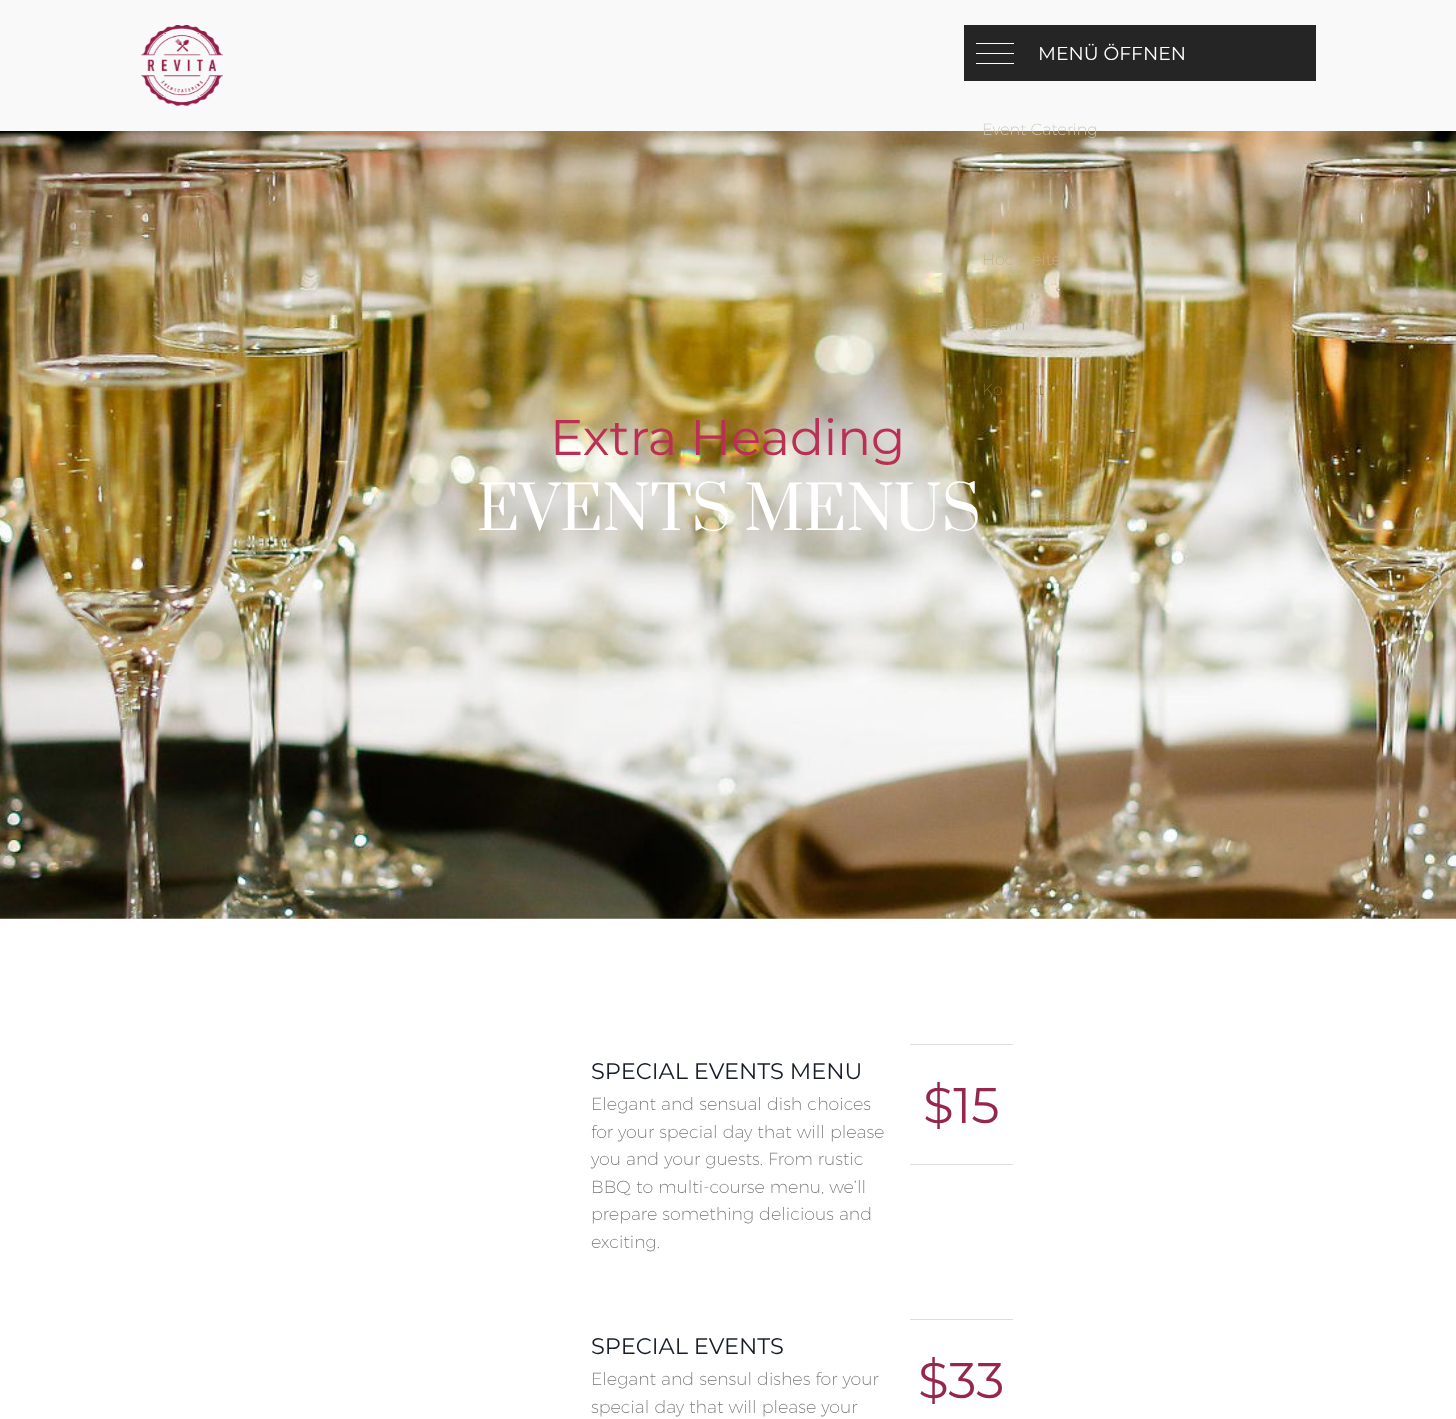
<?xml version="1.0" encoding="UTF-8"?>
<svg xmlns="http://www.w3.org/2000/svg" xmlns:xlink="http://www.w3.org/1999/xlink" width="1456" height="1419">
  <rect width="100%" height="100%" fill="#ffffff" />
  <rect width="1456" height="131" fill="#f9f9f9" />
  <image x="141" y="25" width="82" height="81" xlink:href="image1.png" />
  <rect x="964" y="25" width="352" height="56" fill="#252525" />
  <rect x="976" y="63" width="38" height="1" fill="#ffffff" />
  <rect x="976" y="53" width="38" height="1" fill="#ffffff" />
  <rect x="976" y="43" width="38" height="1" fill="#ffffff" />
  <image x="0" y="131" width="1456" height="788" xlink:href="image2.png" />
  <rect x="910" y="1044" width="103" height="1" fill="#dddddd" />
  <rect x="910" y="1164" width="103" height="1" fill="#dddddd" />
  <rect x="910" y="1319" width="103" height="1" fill="#dddddd" />
  <text x="1038" y="60" style="font-family: Montserrat; font-size: 18.75px; font-weight: 100; fill: #ffffff">MENÜ ÖFFNEN</text>
  <text x="982" y="135" style="font-family: Montserrat; font-size: 16.25px; font-weight: 200; fill: #d1c8b8">Event Catering</text>
  <text x="982" y="265" style="font-family: Montserrat; font-size: 16.25px; font-weight: 200; fill: #c6b081">Hoc</text>
  <text x="1032" y="265" style="font-family: Montserrat; font-size: 16.25px; font-weight: 200; fill: #c6b081">eite</text>
  <text x="982" y="330" style="font-family: Montserrat; font-size: 16.25px; font-weight: 200; fill: #b9aa7c">Team</text>
  <text x="982" y="395" style="font-family: Montserrat; font-size: 16.25px; font-weight: 200; fill: #8c702b">Ko</text>
  <text x="1029" y="395" style="font-family: Montserrat; font-size: 16.25px; font-weight: 200; fill: #8c702b">kt</text>
  <text x="550" y="455" style="font-family: Montserrat; font-size: 50px; font-weight: 100; fill: #bc2f54">Extra Heading</text>
  <text x="477" y="530" style="font-family: Suranna; font-size: 75px; fill: #ffffff">EVENTS MENUS</text>
  <text x="591" y="1079" style="font-family: Montserrat; font-size: 22.5px; font-weight: 100; fill: #161d27">SPECIAL EVENTS MENU</text>
  <text x="591" y="1110" style="font-family: Montserrat; font-size: 17.5px; font-weight: 200; fill: #777777">Elegant and sensual dish choices</text>
  <text x="591" y="1138" style="font-family: Montserrat; font-size: 17.5px; font-weight: 200; fill: #777777">for your special day that will please</text>
  <text x="591" y="1165" style="font-family: Montserrat; font-size: 17.5px; font-weight: 200; fill: #777777">you and your guests. From rustic</text>
  <text x="591" y="1193" style="font-family: Montserrat; font-size: 17.5px; font-weight: 200; fill: #777777">BBQ to multi-course menu, we’ll</text>
  <text x="591" y="1220" style="font-family: Montserrat; font-size: 17.5px; font-weight: 200; fill: #777777">prepare something delicious and</text>
  <text x="591" y="1248" style="font-family: Montserrat; font-size: 17.5px; font-weight: 200; fill: #777777">exciting.</text>
  <text x="923" y="1123" style="font-family: Montserrat; font-size: 50px; font-weight: 100; fill: #95264c">$15</text>
  <text x="591" y="1354" style="font-family: Montserrat; font-size: 22.5px; font-weight: 100; fill: #161d27">SPECIAL EVENTS</text>
  <text x="591" y="1385" style="font-family: Montserrat; font-size: 17.5px; font-weight: 200; fill: #777777">Elegant and sensul dishes for your</text>
  <text x="591" y="1413" style="font-family: Montserrat; font-size: 17.5px; font-weight: 200; fill: #777777">special day that will please your</text>
  <text x="918" y="1398" style="font-family: Montserrat; font-size: 50px; font-weight: 100; fill: #95264c">$33</text>
</svg>
